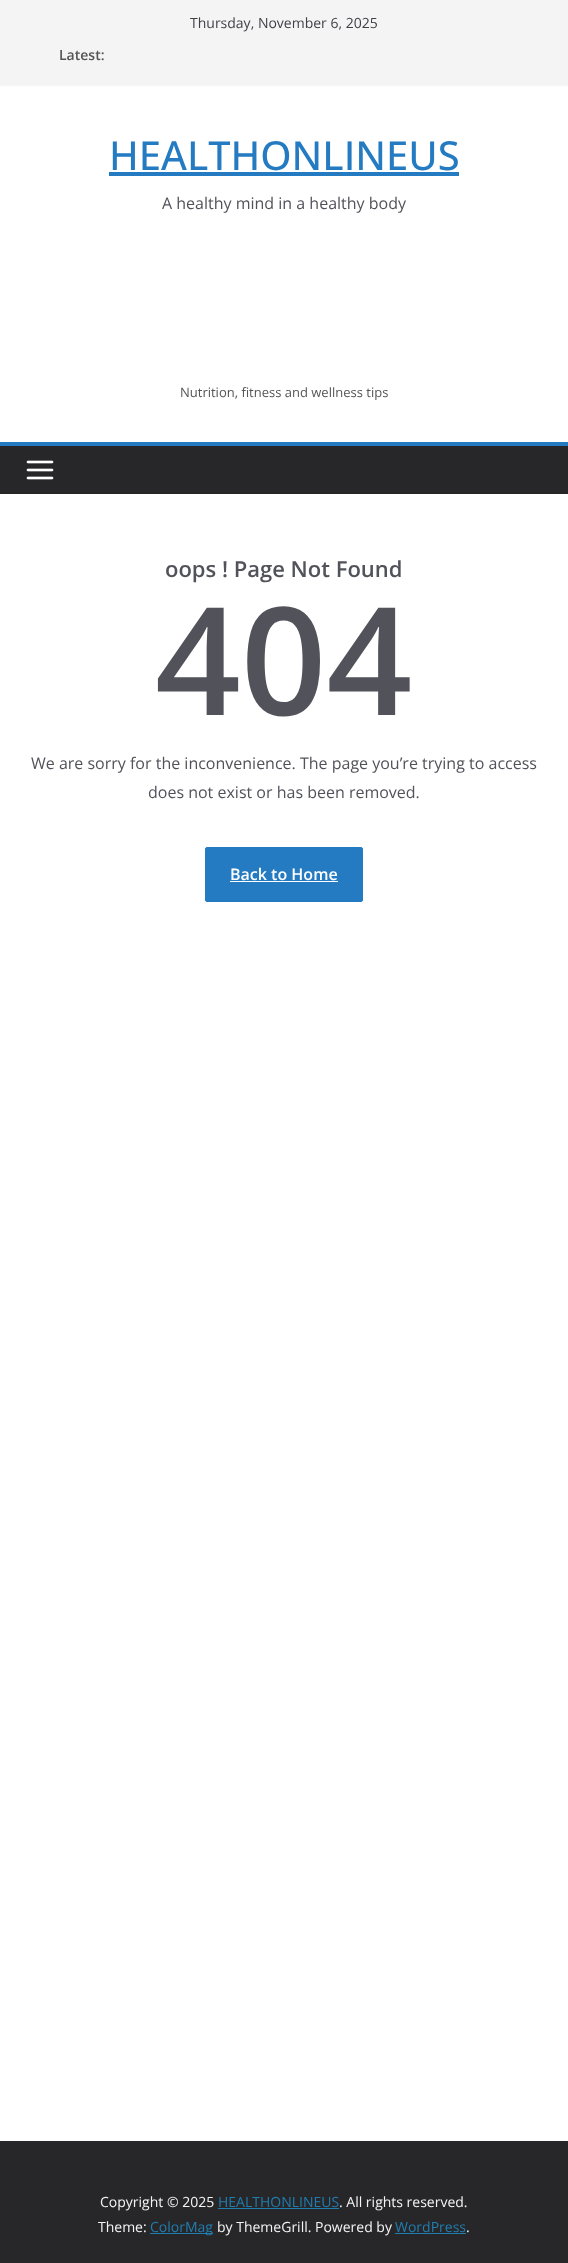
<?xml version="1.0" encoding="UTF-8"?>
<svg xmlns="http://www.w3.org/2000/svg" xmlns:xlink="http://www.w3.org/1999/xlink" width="568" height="2263">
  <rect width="100%" height="100%" fill="#ffffff" />
  <rect width="568" height="85" fill="#000000" fill-opacity="0.1" filter="blur(1px)" />
  <rect width="568" height="85" fill="#f4f4f5" />
  <rect x="109" y="172" width="350" height="4" fill="#257bc1" />
  <rect y="446" width="568" height="48" fill="#27272a" />
  <rect y="442" width="568" height="4" fill="#257bc1" />
  <image x="26" y="460" width="28" height="20" xlink:href="image1.png" />
  <rect x="205.5" y="847.5" width="157" height="54" rx="1.5" fill="#257bc1" stroke="#257bc1" />
  <rect x="230" y="881" width="108" height="1" fill="#ffffff" />
  <rect y="2141" width="568" height="122" fill="#27272a" />
  <rect x="218" y="2208" width="121" height="1" fill="#207daf" />
  <rect x="150" y="2233" width="63" height="1" fill="#207daf" />
  <rect x="395" y="2233" width="71" height="1" fill="#207daf" />
  <text x="190" y="28" style="font-family: Open Sans; font-size: 14px; fill: #3f3f46">Thursday, November 6, 2025</text>
  <text x="59" y="60" style="font-family: Open Sans; font-size: 14px; font-weight: 600; fill: #555555">Latest:</text>
  <text x="109" y="170" style="font-family: Open Sans; font-size: 40px; font-weight: 500; fill: #257bc1">HEALTHONLINEUS</text>
  <text x="162" y="209" style="font-family: Open Sans; font-size: 16px; fill: #52525b">A healthy mind in a healthy body</text>
  <text x="180" y="397" style="font-family: Open Sans; font-size: 13px; fill: #555555">Nutrition, fitness and wellness tips</text>
  <text x="165" y="577" style="font-family: Open Sans; font-size: 22px; font-weight: 600; fill: #52525b">oops ! Page Not Found</text>
  <text x="155" y="715" style="font-family: Open Sans; font-size: 150px; font-weight: 600; fill: #52525b">404</text>
  <text x="31" y="769" style="font-family: Open Sans; font-size: 16px; fill: #52525b">We are sorry for the inconvenience. The page you’re trying to access</text>
  <text x="148" y="798" style="font-family: Open Sans; font-size: 16px; fill: #52525b">does not exist or has been removed.</text>
  <text x="230" y="880" style="font-family: Open Sans; font-size: 16px; font-weight: 600; fill: #ffffff">Back to Home</text>
  <text x="100" y="2207" style="font-family: Open Sans; font-size: 14px; fill: #f4f4f5">Copyright © 2025</text>
  <text x="218" y="2207" style="font-family: Open Sans; font-size: 14px; fill: #207daf">HEALTHONLINEUS</text>
  <text x="339" y="2207" style="font-family: Open Sans; font-size: 14px; fill: #f4f4f5">. All rights reserved.</text>
  <text x="98" y="2232" style="font-family: Open Sans; font-size: 14px; fill: #f4f4f5">Theme:</text>
  <text x="150" y="2232" style="font-family: Open Sans; font-size: 14px; fill: #207daf">ColorMag</text>
  <text x="217" y="2232" style="font-family: Open Sans; font-size: 14px; fill: #f4f4f5">by ThemeGrill. Powered by</text>
  <text x="395" y="2232" style="font-family: Open Sans; font-size: 14px; fill: #207daf">WordPress</text>
  <text x="466" y="2232" style="font-family: Open Sans; font-size: 14px; fill: #f4f4f5">.</text>
</svg>
